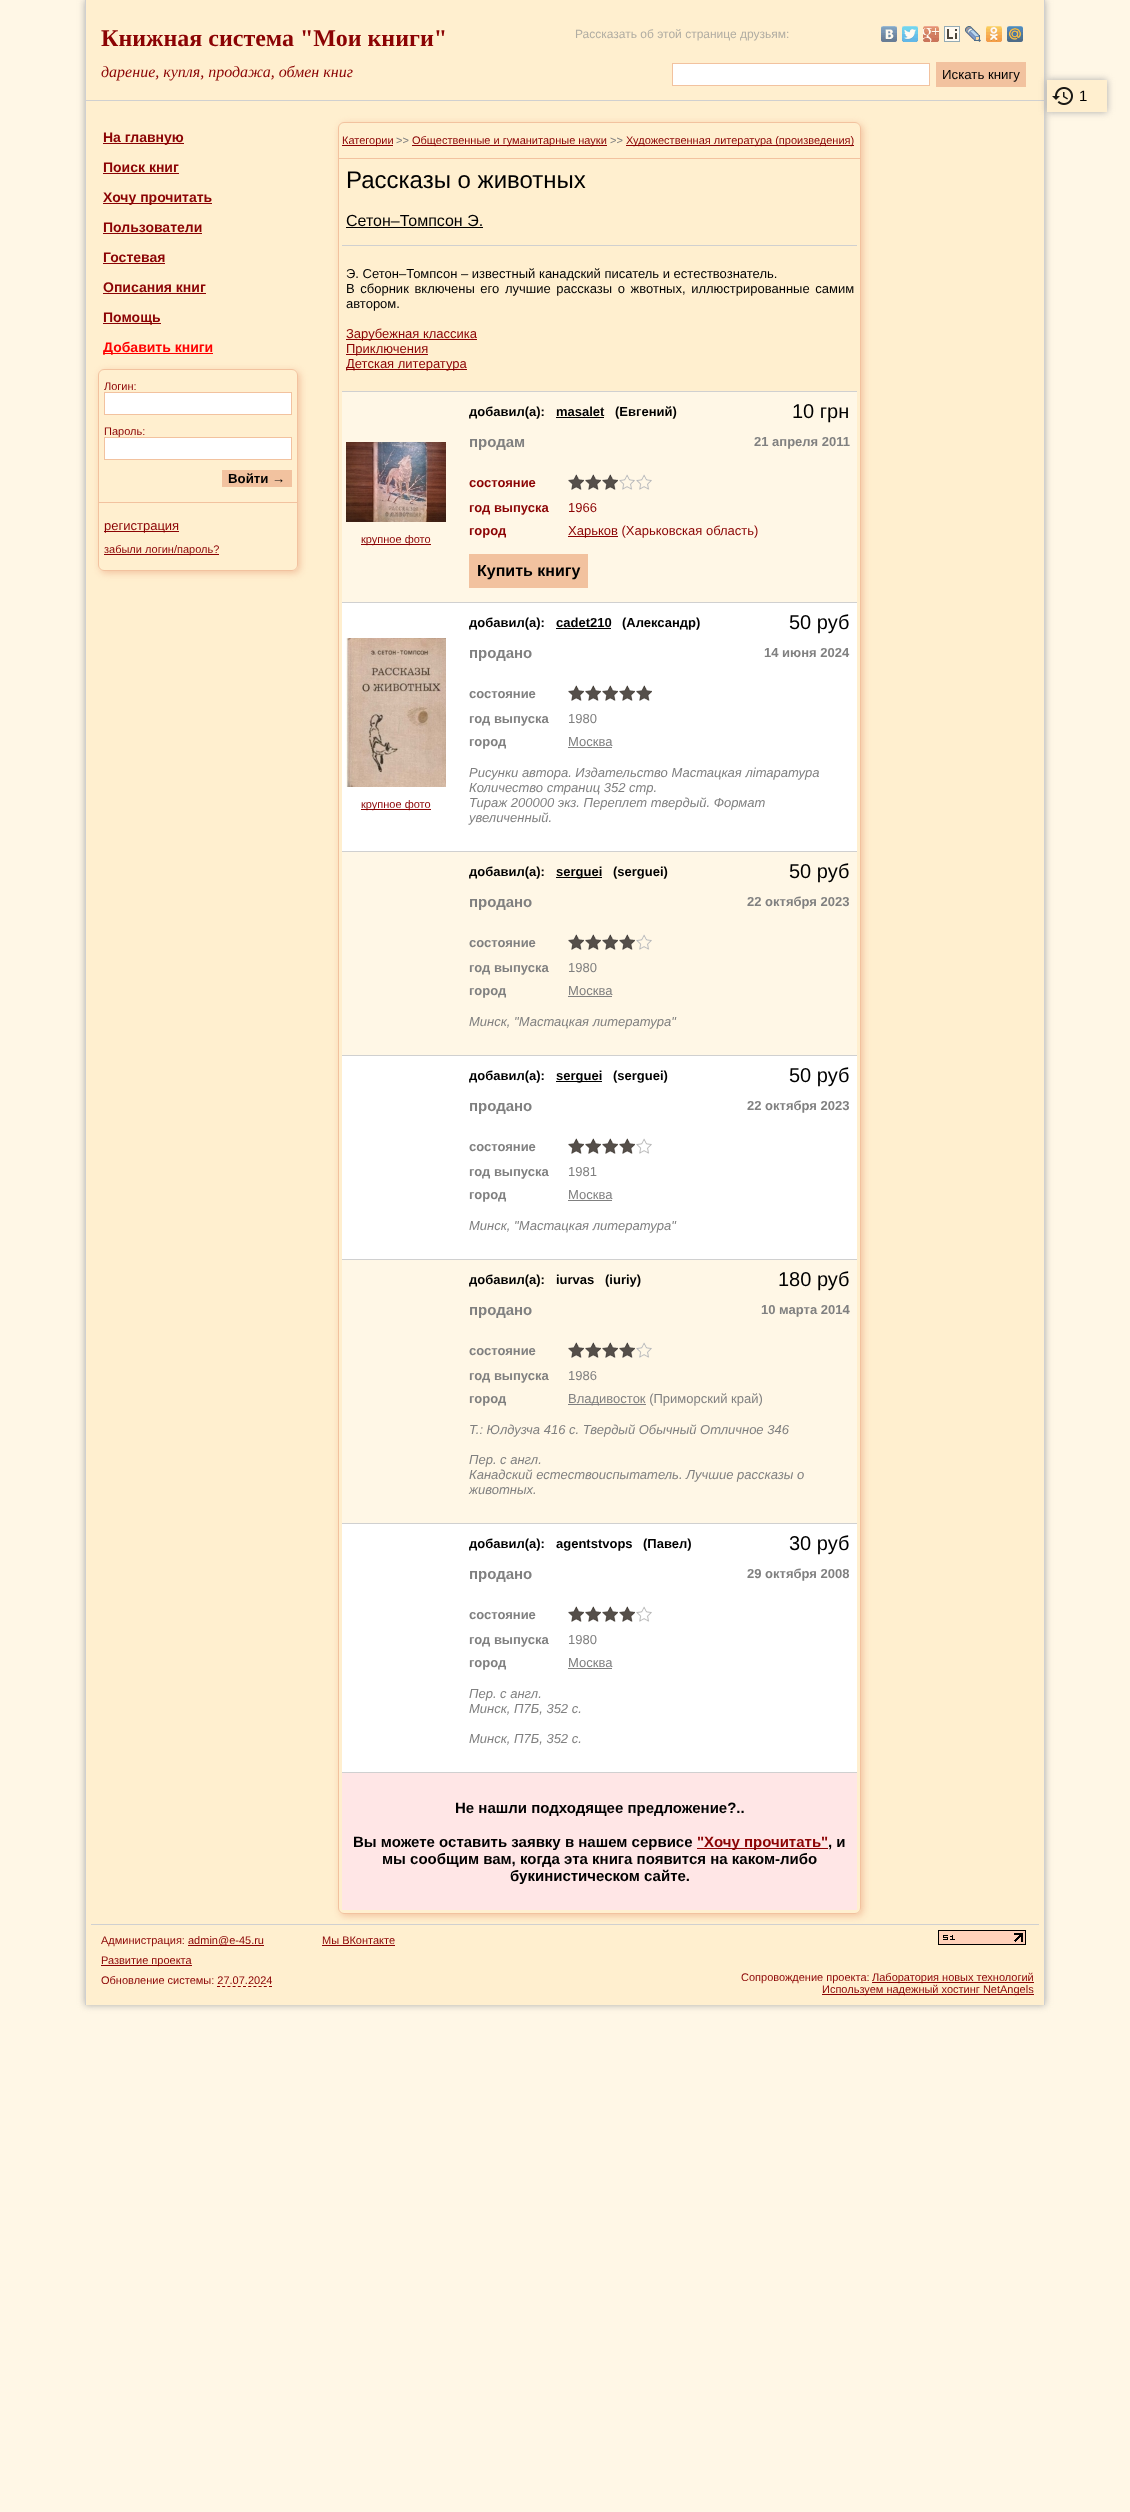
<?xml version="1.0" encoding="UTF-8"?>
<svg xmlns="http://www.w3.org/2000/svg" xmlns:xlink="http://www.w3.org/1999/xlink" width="1130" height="2512">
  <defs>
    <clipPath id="clip1"><path d="M 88 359 h 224 v 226 h -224 z m 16 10 h 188 c 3.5 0 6 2.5 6 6 v 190 c 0 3.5 -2.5 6 -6 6 h -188 c -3.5 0 -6 -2.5 -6 -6 v -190 c 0 -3.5 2.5 -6 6 -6 z" clip-rule="evenodd" /></clipPath>
    <clipPath id="clip2"><path d="M 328 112 h 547 v 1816 h -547 z m 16 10 h 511 c 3.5 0 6 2.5 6 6 v 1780 c 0 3.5 -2.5 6 -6 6 h -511 c -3.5 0 -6 -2.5 -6 -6 v -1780 c 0 -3.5 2.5 -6 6 -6 z" clip-rule="evenodd" /></clipPath>
  </defs>
  <rect width="100%" height="100%" fill="#fff7e6" />
  <rect x="85" width="960" height="2005" fill="#aaaaaa" filter="blur(3.5px)" />
  <rect x="86" width="958" height="2005" fill="#ffefcf" />
  <rect x="1044" width="1" height="2005" fill="#d0d0d0" />
  <rect x="85" width="1" height="2005" fill="#d0d0d0" />
  <rect x="86" y="100" width="958" height="1" fill="#d0d0d0" />
  <image x="881" y="26" width="16" height="16" xlink:href="image1.png" />
  <image x="902" y="26" width="16" height="16" xlink:href="image2.png" />
  <image x="923" y="26" width="16" height="16" xlink:href="image3.png" />
  <image x="944" y="26" width="16" height="16" xlink:href="image4.png" />
  <image x="965" y="26" width="16" height="16" xlink:href="image5.png" />
  <image x="986" y="26" width="16" height="16" xlink:href="image6.png" />
  <image x="1007" y="26" width="16" height="16" xlink:href="image7.png" />
  <rect x="672.5" y="63.5" width="257" height="22" fill="#ffffff" stroke="#f2c29f" />
  <rect x="936" y="62" width="90" height="25" fill="#f2c29f" />
  <rect x="1047" y="80" width="60" height="32" fill="#aaaaaa" filter="blur(3.5px)" />
  <rect x="1047" y="80" width="60" height="32" fill="#ffefcf" />
  <image x="1052" y="87" width="21" height="18" xlink:href="image8.png" />
  <rect x="103" y="143" width="81" height="1" fill="#8b0304" />
  <rect x="103" y="173" width="76" height="1" fill="#8b0304" />
  <rect x="103" y="203" width="109" height="1" fill="#8b0304" />
  <rect x="103" y="233" width="99" height="1" fill="#8b0304" />
  <rect x="103" y="263" width="62" height="1" fill="#8b0304" />
  <rect x="103" y="293" width="103" height="1" fill="#8b0304" />
  <rect x="103" y="323" width="58" height="1" fill="#8b0304" />
  <rect x="103" y="353" width="110" height="1" fill="#ff0000" />
  <g clip-path="url(#clip1)">
    <rect x="100" y="371" width="200" height="202" rx="6" fill="#f2c29f" filter="blur(3.5px)" />
  </g>
  <rect x="98.5" y="369.5" width="199" height="201" rx="5.5" fill="none" stroke="#f2c29f" />
  <rect x="104.5" y="392.5" width="187" height="22" fill="#ffffff" stroke="#f2c29f" />
  <rect x="222" y="470" width="70" height="17" fill="#f2c29f" />
  <rect x="99" y="502" width="198" height="1" fill="#f2c29f" />
  <rect x="104" y="531" width="75" height="1" fill="#8b0304" />
  <rect x="104" y="554" width="115" height="1" fill="#8b0304" />
  <g clip-path="url(#clip2)">
    <rect x="340" y="124" width="523" height="1792" rx="6" fill="#f2c29f" filter="blur(3.5px)" />
  </g>
  <rect x="338.5" y="122.5" width="522" height="1791" rx="5.5" fill="none" stroke="#f2c29f" />
  <rect x="339" y="158" width="521" height="1" fill="#f2c29f" />
  <rect x="342" y="145" width="51" height="1" fill="#8b0304" />
  <rect x="412" y="145" width="195" height="1" fill="#8b0304" />
  <rect x="626" y="145" width="228" height="1" fill="#8b0304" />
  <rect x="342" y="245" width="515" height="1" fill="#d0d0d0" />
  <rect x="346" y="227" width="137" height="1" fill="#000000" />
  <rect x="342" y="391" width="515" height="1" fill="#d0d0d0" />
  <rect x="346" y="339" width="131" height="1" fill="#8b0304" />
  <rect x="346" y="354" width="82" height="1" fill="#8b0304" />
  <rect x="346" y="369" width="121" height="1" fill="#8b0304" />
  <rect x="342" y="392" width="515" height="210" fill="#fff7e6" />
  <rect x="342" y="602" width="515" height="1" fill="#d0d0d0" />
  <image x="346" y="442" width="100" height="80" xlink:href="image9.png" />
  <rect x="361" y="544" width="70" height="1" fill="#8b0304" />
  <rect x="556" y="417" width="48" height="1" fill="#000000" />
  <image x="568" y="474" width="84" height="16" xlink:href="image10.png" />
  <rect x="568" y="536" width="50" height="1" fill="#8b0304" />
  <rect x="469" y="554" width="119" height="34" fill="#f2c29f" />
  <rect x="342" y="603" width="515" height="248" fill="#ffffff" />
  <rect x="342" y="851" width="515" height="1" fill="#d0d0d0" />
  <image x="346" y="638" width="100" height="149" xlink:href="image11.png" />
  <rect x="361" y="809" width="70" height="1" fill="#8b0304" />
  <rect x="556" y="628" width="55" height="1" fill="#000000" />
  <image x="568" y="685" width="84" height="16" xlink:href="image12.png" />
  <rect x="568" y="747" width="44" height="1" fill="#808080" />
  <rect x="342" y="852" width="515" height="203" fill="#fff7e6" />
  <rect x="556" y="877" width="46" height="1" fill="#000000" />
  <image x="568" y="934" width="84" height="16" xlink:href="image13.png" />
  <rect x="568" y="996" width="44" height="1" fill="#808080" />
  <rect x="342" y="1055" width="515" height="1" fill="#d0d0d0" />
  <rect x="342" y="1056" width="515" height="203" fill="#ffffff" />
  <rect x="556" y="1081" width="46" height="1" fill="#000000" />
  <image x="568" y="1138" width="84" height="16" xlink:href="image14.png" />
  <rect x="568" y="1200" width="44" height="1" fill="#808080" />
  <rect x="342" y="1259" width="515" height="1" fill="#d0d0d0" />
  <rect x="342" y="1260" width="515" height="263" fill="#fff7e6" />
  <image x="568" y="1342" width="84" height="16" xlink:href="image13.png" />
  <rect x="568" y="1404" width="78" height="1" fill="#808080" />
  <rect x="342" y="1523" width="515" height="1" fill="#d0d0d0" />
  <rect x="342" y="1524" width="515" height="248" fill="#ffffff" />
  <image x="568" y="1606" width="84" height="16" xlink:href="image14.png" />
  <rect x="568" y="1668" width="44" height="1" fill="#808080" />
  <rect x="342" y="1772" width="515" height="1" fill="#d0d0d0" />
  <rect x="342" y="1773" width="515" height="137" fill="#ffe6e6" />
  <rect x="697" y="1848" width="131" height="1" fill="#8b0304" />
  <rect x="91" y="1924" width="948" height="1" fill="#d0d0d0" />
  <rect x="188" y="1945" width="76" height="1" fill="#8b0304" />
  <rect x="101" y="1965" width="91" height="1" fill="#8b0304" />
  <path d="M 217 1986.5 h 55" fill="none" stroke="#8b0304" stroke-dasharray="3 2.2" />
  <rect x="322" y="1945" width="73" height="1" fill="#8b0304" />
  <image x="938" y="1930" width="88" height="15" xlink:href="image15.png" />
  <rect x="872" y="1982" width="162" height="1" fill="#8b0304" />
  <rect x="822" y="1994" width="212" height="1" fill="#8b0304" />
  <text x="101" y="46" style="font-family: Liberation Serif; font-size: 24px; font-weight: bold; fill: #8b0304">Книжная система "Мои книги"</text>
  <text x="575" y="38" style="font-family: Liberation Sans; font-size: 12px; fill: #b1ada3">Рассказать об этой странице друзьям:</text>
  <text x="101" y="77" style="font-family: Liberation Serif; font-size: 16px; font-style: italic; fill: #8b0304">дарение, купля, продажа, обмен книг</text>
  <text x="942" y="79" style="font-family: Liberation Sans; font-size: 13.25px; fill: #000000">Искать книгу</text>
  <text x="1079" y="101" style="font-family: Liberation Sans; font-size: 15px; fill: #000000">1</text>
  <text x="103" y="142" style="font-family: Liberation Sans; font-size: 14px; font-weight: bold; fill: #8b0304">На главную</text>
  <text x="103" y="172" style="font-family: Liberation Sans; font-size: 14px; font-weight: bold; fill: #8b0304">Поиск книг</text>
  <text x="103" y="202" style="font-family: Liberation Sans; font-size: 14px; font-weight: bold; fill: #8b0304">Хочу прочитать</text>
  <text x="103" y="232" style="font-family: Liberation Sans; font-size: 14px; font-weight: bold; fill: #8b0304">Пользователи</text>
  <text x="103" y="262" style="font-family: Liberation Sans; font-size: 14px; font-weight: bold; fill: #8b0304">Гостевая</text>
  <text x="103" y="292" style="font-family: Liberation Sans; font-size: 14px; font-weight: bold; fill: #8b0304">Описания книг</text>
  <text x="103" y="322" style="font-family: Liberation Sans; font-size: 14px; font-weight: bold; fill: #8b0304">Помощь</text>
  <text x="103" y="352" style="font-family: Liberation Sans; font-size: 14px; font-weight: bold; fill: #ff0000">Добавить книги</text>
  <text x="104" y="390" style="font-family: Liberation Sans; font-size: 11px; fill: #8b0304">Логин:</text>
  <text x="104" y="435" style="font-family: Liberation Sans; font-size: 11px; fill: #8b0304">Пароль:</text>
  <rect x="104.5" y="437.5" width="187" height="22" fill="#ffffff" stroke="#f2c29f" />
  <text x="228" y="483" style="font-family: Liberation Sans; font-size: 13.25px; font-weight: bold; fill: #000000">Войти →</text>
  <text x="104" y="530" style="font-family: Liberation Sans; font-size: 13px; fill: #8b0304">регистрация</text>
  <text x="104" y="553" style="font-family: Liberation Sans; font-size: 11px; fill: #8b0304">забыли логин/пароль?</text>
  <text x="342" y="144" style="font-family: Liberation Sans; font-size: 11px; fill: #8b0304">Категории</text>
  <text x="396" y="144" style="font-family: Liberation Sans; font-size: 11px; fill: #808080">&gt;&gt;</text>
  <text x="412" y="144" style="font-family: Liberation Sans; font-size: 11px; fill: #8b0304">Общественные и гуманитарные науки</text>
  <text x="610" y="144" style="font-family: Liberation Sans; font-size: 11px; fill: #808080">&gt;&gt;</text>
  <text x="626" y="144" style="font-family: Liberation Sans; font-size: 11px; fill: #8b0304">Художественная литература (произведения)</text>
  <text x="346" y="188" style="font-family: Liberation Sans; font-size: 24px; fill: #000000">Рассказы о животных</text>
  <text x="346" y="226" style="font-family: Liberation Sans; font-size: 16px; fill: #000000">Сетон–Томпсон Э.</text>
  <text x="346" y="278" style="font-family: Liberation Sans; font-size: 13px; fill: #000000">Э. Сетон–Томпсон – известный канадский писатель и естествознатель.</text>
  <text x="346" y="293" word-spacing="2" style="font-family: Liberation Sans; font-size: 13px; fill: #000000">В сборник включены его лучшие рассказы о жвотных, иллюстрированные самим</text>
  <text x="346" y="308" style="font-family: Liberation Sans; font-size: 13px; fill: #000000">автором.</text>
  <text x="346" y="338" style="font-family: Liberation Sans; font-size: 13px; fill: #8b0304">Зарубежная классика</text>
  <text x="346" y="353" style="font-family: Liberation Sans; font-size: 13px; fill: #8b0304">Приключения</text>
  <text x="346" y="368" style="font-family: Liberation Sans; font-size: 13px; fill: #8b0304">Детская литература</text>
  <text x="361" y="543" style="font-family: Liberation Sans; font-size: 11px; fill: #8b0304">крупное фото</text>
  <text x="469" y="416" style="font-family: Liberation Sans; font-size: 13px; font-weight: bold; fill: #000000">добавил(a):</text>
  <text x="556" y="416" style="font-family: Liberation Sans; font-size: 13px; font-weight: bold; fill: #000000">masalet</text>
  <text x="615" y="416" style="font-family: Liberation Sans; font-size: 13px; font-weight: bold; fill: #000000">(Евгений)</text>
  <text x="792" y="418" style="font-family: Liberation Sans; font-size: 20px; fill: #000000">10 грн</text>
  <text x="469" y="447" style="font-family: Liberation Sans; font-size: 15px; font-weight: bold; fill: #808080">продам</text>
  <text x="754" y="446" style="font-family: Liberation Sans; font-size: 13px; font-weight: bold; fill: #808080">21 апреля 2011</text>
  <text x="469" y="487" style="font-family: Liberation Sans; font-size: 13px; font-weight: bold; fill: #8b0304">состояние</text>
  <text x="469" y="512" style="font-family: Liberation Sans; font-size: 13px; font-weight: bold; fill: #8b0304">год выпуска</text>
  <text x="568" y="512" style="font-family: Liberation Sans; font-size: 13px; fill: #8b0304">1966</text>
  <text x="469" y="535" style="font-family: Liberation Sans; font-size: 13px; font-weight: bold; fill: #8b0304">город</text>
  <text x="568" y="535" style="font-family: Liberation Sans; font-size: 13px; fill: #8b0304">Харьков (Харьковская область)</text>
  <text x="477" y="576" style="font-family: Liberation Sans; font-size: 16px; font-weight: bold; fill: #000000">Купить книгу</text>
  <text x="361" y="808" style="font-family: Liberation Sans; font-size: 11px; fill: #8b0304">крупное фото</text>
  <text x="469" y="627" style="font-family: Liberation Sans; font-size: 13px; font-weight: bold; fill: #000000">добавил(a):</text>
  <text x="556" y="627" style="font-family: Liberation Sans; font-size: 13px; font-weight: bold; fill: #000000">cadet210</text>
  <text x="622" y="627" style="font-family: Liberation Sans; font-size: 13px; font-weight: bold; fill: #000000">(Александр)</text>
  <text x="789" y="629" style="font-family: Liberation Sans; font-size: 20px; fill: #000000">50 руб</text>
  <text x="469" y="658" style="font-family: Liberation Sans; font-size: 15px; font-weight: bold; fill: #808080">продано</text>
  <text x="764" y="657" style="font-family: Liberation Sans; font-size: 13px; font-weight: bold; fill: #808080">14 июня 2024</text>
  <text x="469" y="698" style="font-family: Liberation Sans; font-size: 13px; font-weight: bold; fill: #808080">состояние</text>
  <text x="469" y="723" style="font-family: Liberation Sans; font-size: 13px; font-weight: bold; fill: #808080">год выпуска</text>
  <text x="568" y="723" style="font-family: Liberation Sans; font-size: 13px; fill: #808080">1980</text>
  <text x="469" y="746" style="font-family: Liberation Sans; font-size: 13px; font-weight: bold; fill: #808080">город</text>
  <text x="568" y="746" style="font-family: Liberation Sans; font-size: 13px; fill: #808080">Москва</text>
  <text x="469" y="777" style="font-family: Liberation Sans; font-size: 13px; font-style: italic; fill: #808080">Рисунки автора. Издательство Мастацкая лiтаратура</text>
  <text x="469" y="792" style="font-family: Liberation Sans; font-size: 13px; font-style: italic; fill: #808080">Количество страниц 352 стр.</text>
  <text x="469" y="807" style="font-family: Liberation Sans; font-size: 13px; font-style: italic; fill: #808080">Тираж 200000 экз. Переплет твердый. Формат</text>
  <text x="469" y="822" style="font-family: Liberation Sans; font-size: 13px; font-style: italic; fill: #808080">увеличенный.</text>
  <text x="469" y="876" style="font-family: Liberation Sans; font-size: 13px; font-weight: bold; fill: #000000">добавил(a):</text>
  <text x="556" y="876" style="font-family: Liberation Sans; font-size: 13px; font-weight: bold; fill: #000000">serguei</text>
  <text x="613" y="876" style="font-family: Liberation Sans; font-size: 13px; font-weight: bold; fill: #000000">(serguei)</text>
  <text x="789" y="878" style="font-family: Liberation Sans; font-size: 20px; fill: #000000">50 руб</text>
  <text x="469" y="907" style="font-family: Liberation Sans; font-size: 15px; font-weight: bold; fill: #808080">продано</text>
  <text x="747" y="906" style="font-family: Liberation Sans; font-size: 13px; font-weight: bold; fill: #808080">22 октября 2023</text>
  <text x="469" y="947" style="font-family: Liberation Sans; font-size: 13px; font-weight: bold; fill: #808080">состояние</text>
  <text x="469" y="972" style="font-family: Liberation Sans; font-size: 13px; font-weight: bold; fill: #808080">год выпуска</text>
  <text x="568" y="972" style="font-family: Liberation Sans; font-size: 13px; fill: #808080">1980</text>
  <text x="469" y="995" style="font-family: Liberation Sans; font-size: 13px; font-weight: bold; fill: #808080">город</text>
  <text x="568" y="995" style="font-family: Liberation Sans; font-size: 13px; fill: #808080">Москва</text>
  <text x="469" y="1026" style="font-family: Liberation Sans; font-size: 13px; font-style: italic; fill: #808080">Минск, "Мастацкая литература"</text>
  <text x="469" y="1080" style="font-family: Liberation Sans; font-size: 13px; font-weight: bold; fill: #000000">добавил(a):</text>
  <text x="556" y="1080" style="font-family: Liberation Sans; font-size: 13px; font-weight: bold; fill: #000000">serguei</text>
  <text x="613" y="1080" style="font-family: Liberation Sans; font-size: 13px; font-weight: bold; fill: #000000">(serguei)</text>
  <text x="789" y="1082" style="font-family: Liberation Sans; font-size: 20px; fill: #000000">50 руб</text>
  <text x="469" y="1111" style="font-family: Liberation Sans; font-size: 15px; font-weight: bold; fill: #808080">продано</text>
  <text x="747" y="1110" style="font-family: Liberation Sans; font-size: 13px; font-weight: bold; fill: #808080">22 октября 2023</text>
  <text x="469" y="1151" style="font-family: Liberation Sans; font-size: 13px; font-weight: bold; fill: #808080">состояние</text>
  <text x="469" y="1176" style="font-family: Liberation Sans; font-size: 13px; font-weight: bold; fill: #808080">год выпуска</text>
  <text x="568" y="1176" style="font-family: Liberation Sans; font-size: 13px; fill: #808080">1981</text>
  <text x="469" y="1199" style="font-family: Liberation Sans; font-size: 13px; font-weight: bold; fill: #808080">город</text>
  <text x="568" y="1199" style="font-family: Liberation Sans; font-size: 13px; fill: #808080">Москва</text>
  <text x="469" y="1230" style="font-family: Liberation Sans; font-size: 13px; font-style: italic; fill: #808080">Минск, "Мастацкая литература"</text>
  <text x="469" y="1284" style="font-family: Liberation Sans; font-size: 13px; font-weight: bold; fill: #000000">добавил(a):</text>
  <text x="556" y="1284" style="font-family: Liberation Sans; font-size: 13px; font-weight: bold; fill: #000000">iurvas</text>
  <text x="605" y="1284" style="font-family: Liberation Sans; font-size: 13px; font-weight: bold; fill: #000000">(iuriy)</text>
  <text x="778" y="1286" style="font-family: Liberation Sans; font-size: 20px; fill: #000000">180 руб</text>
  <text x="469" y="1315" style="font-family: Liberation Sans; font-size: 15px; font-weight: bold; fill: #808080">продано</text>
  <text x="761" y="1314" style="font-family: Liberation Sans; font-size: 13px; font-weight: bold; fill: #808080">10 марта 2014</text>
  <text x="469" y="1355" style="font-family: Liberation Sans; font-size: 13px; font-weight: bold; fill: #808080">состояние</text>
  <text x="469" y="1380" style="font-family: Liberation Sans; font-size: 13px; font-weight: bold; fill: #808080">год выпуска</text>
  <text x="568" y="1380" style="font-family: Liberation Sans; font-size: 13px; fill: #808080">1986</text>
  <text x="469" y="1403" style="font-family: Liberation Sans; font-size: 13px; font-weight: bold; fill: #808080">город</text>
  <text x="568" y="1403" style="font-family: Liberation Sans; font-size: 13px; fill: #808080">Владивосток (Приморский край)</text>
  <text x="469" y="1434" style="font-family: Liberation Sans; font-size: 13px; font-style: italic; fill: #808080">Т.: Юлдузча 416 с. Твердый Обычный Отличное 346</text>
  <text x="469" y="1464" style="font-family: Liberation Sans; font-size: 13px; font-style: italic; fill: #808080">Пер. с англ.</text>
  <text x="469" y="1479" style="font-family: Liberation Sans; font-size: 13px; font-style: italic; fill: #808080">Канадский естествоиспытатель. Лучшие рассказы о</text>
  <text x="469" y="1494" style="font-family: Liberation Sans; font-size: 13px; font-style: italic; fill: #808080">животных.</text>
  <text x="469" y="1548" style="font-family: Liberation Sans; font-size: 13px; font-weight: bold; fill: #000000">добавил(a):</text>
  <text x="556" y="1548" style="font-family: Liberation Sans; font-size: 13px; font-weight: bold; fill: #000000">agentstvops</text>
  <text x="643" y="1548" style="font-family: Liberation Sans; font-size: 13px; font-weight: bold; fill: #000000">(Павел)</text>
  <text x="789" y="1550" style="font-family: Liberation Sans; font-size: 20px; fill: #000000">30 руб</text>
  <text x="469" y="1579" style="font-family: Liberation Sans; font-size: 15px; font-weight: bold; fill: #808080">продано</text>
  <text x="747" y="1578" style="font-family: Liberation Sans; font-size: 13px; font-weight: bold; fill: #808080">29 октября 2008</text>
  <text x="469" y="1619" style="font-family: Liberation Sans; font-size: 13px; font-weight: bold; fill: #808080">состояние</text>
  <text x="469" y="1644" style="font-family: Liberation Sans; font-size: 13px; font-weight: bold; fill: #808080">год выпуска</text>
  <text x="568" y="1644" style="font-family: Liberation Sans; font-size: 13px; fill: #808080">1980</text>
  <text x="469" y="1667" style="font-family: Liberation Sans; font-size: 13px; font-weight: bold; fill: #808080">город</text>
  <text x="568" y="1667" style="font-family: Liberation Sans; font-size: 13px; fill: #808080">Москва</text>
  <text x="469" y="1698" style="font-family: Liberation Sans; font-size: 13px; font-style: italic; fill: #808080">Пер. с англ.</text>
  <text x="469" y="1713" style="font-family: Liberation Sans; font-size: 13px; font-style: italic; fill: #808080">Минск, П7Б, 352 с.</text>
  <text x="469" y="1743" style="font-family: Liberation Sans; font-size: 13px; font-style: italic; fill: #808080">Минск, П7Б, 352 с.</text>
  <text x="455" y="1813" style="font-family: Liberation Sans; font-size: 15px; font-weight: bold; fill: #000000">Не нашли подходящее предложение?..</text>
  <text x="353" y="1847" style="font-family: Liberation Sans; font-size: 15px; font-weight: bold; fill: #000000">Вы можете оставить заявку в нашем сервисе</text>
  <text x="697" y="1847" style="font-family: Liberation Sans; font-size: 15px; font-weight: bold; fill: #8b0304">"Хочу прочитать"</text>
  <text x="828" y="1847" style="font-family: Liberation Sans; font-size: 15px; font-weight: bold; fill: #000000">, и</text>
  <text x="382" y="1864" style="font-family: Liberation Sans; font-size: 15px; font-weight: bold; fill: #000000">мы сообщим вам, когда эта книга появится на каком-либо</text>
  <text x="510" y="1881" style="font-family: Liberation Sans; font-size: 15px; font-weight: bold; fill: #000000">букинистическом сайте.</text>
  <text x="101" y="1944" style="font-family: Liberation Sans; font-size: 11px; fill: #8b0304">Администрация:</text>
  <text x="188" y="1944" style="font-family: Liberation Sans; font-size: 11px; fill: #8b0304">admin@e-45.ru</text>
  <text x="101" y="1964" style="font-family: Liberation Sans; font-size: 11px; fill: #8b0304">Развитие проекта</text>
  <text x="101" y="1984" style="font-family: Liberation Sans; font-size: 11px; fill: #8b0304">Обновление системы: 27.07.2024</text>
  <text x="322" y="1944" style="font-family: Liberation Sans; font-size: 11px; fill: #8b0304">Мы ВКонтакте</text>
  <text x="741" y="1981" style="font-family: Liberation Sans; font-size: 11px; fill: #8b0304">Сопровождение проекта:</text>
  <text x="872" y="1981" style="font-family: Liberation Sans; font-size: 11px; fill: #8b0304">Лаборатория новых технологий</text>
  <text x="822" y="1993" style="font-family: Liberation Sans; font-size: 11px; fill: #8b0304">Используем надежный хостинг NetAngels</text>
</svg>
